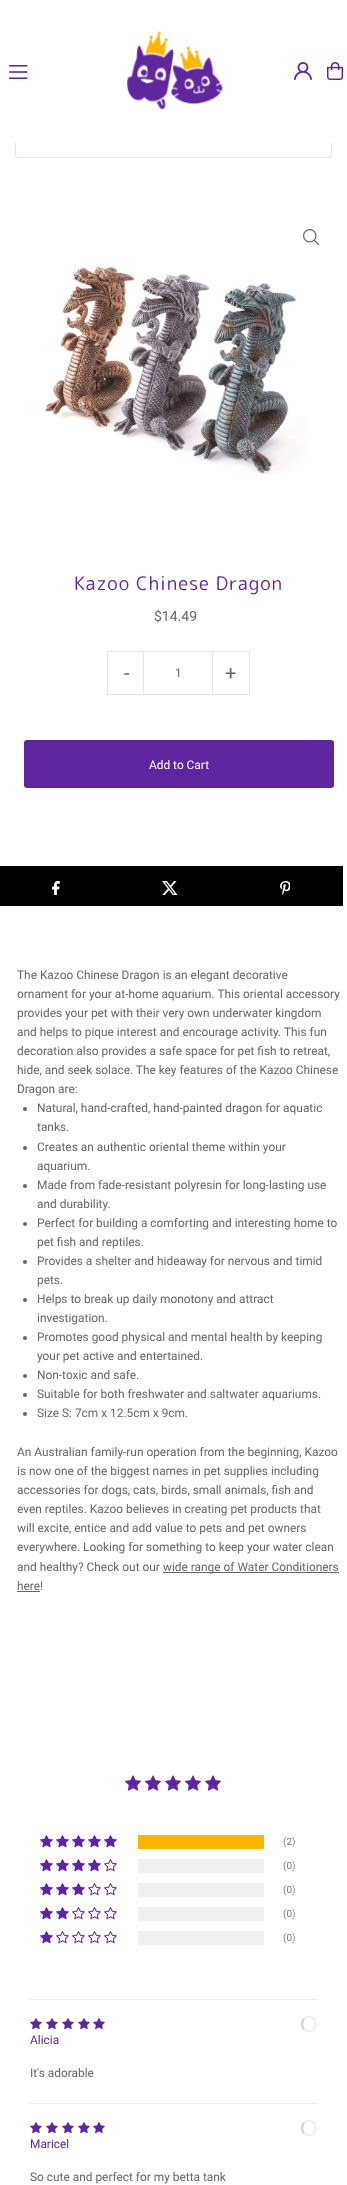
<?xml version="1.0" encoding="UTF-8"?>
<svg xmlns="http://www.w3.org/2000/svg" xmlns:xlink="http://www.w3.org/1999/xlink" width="347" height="2185">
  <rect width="100%" height="100%" fill="#ffffff" />
  <rect x="15.5" y="110.5" width="316" height="47" rx="2.5" fill="none" stroke="#e5e5e5" />
  <rect x="15" y="110" width="317" height="33" fill="#ffffff" />
  <image x="9" y="65" width="19" height="14" xlink:href="image1.png" />
  <image x="127" y="31" width="97" height="79" xlink:href="image2.png" />
  <image x="294" y="62" width="18" height="18" xlink:href="image3.png" />
  <image x="327" y="62" width="17" height="18" xlink:href="image4.png" />
  <image x="303" y="229" width="16" height="16" xlink:href="image5.png" />
  <image x="44" y="246" width="264" height="228" xlink:href="image6.png" />
  <rect x="107" y="651" width="38" height="1" fill="#e5e5e5" />
  <rect x="107" y="694" width="38" height="1" fill="#e5e5e5" />
  <rect x="107" y="651" width="1" height="44" fill="#e5e5e5" />
  <rect x="143.5" y="651.5" width="69" height="43" fill="none" stroke="#e5e5e5" />
  <rect x="212" y="651" width="38" height="1" fill="#e5e5e5" />
  <rect x="249" y="651" width="1" height="44" fill="#e5e5e5" />
  <rect x="212" y="694" width="38" height="1" fill="#e5e5e5" />
  <rect x="24" y="740" width="310" height="48" rx="3" fill="#5f259f" />
  <rect y="866" width="343" height="40" fill="#000000" />
  <image x="52" y="881" width="8" height="14" xlink:href="image7.png" />
  <image x="162" y="881" width="16" height="14" xlink:href="image8.png" />
  <image x="280" y="881" width="10" height="14" xlink:href="image9.png" />
  <circle cx="25" cy="1109" r="2" fill="#666666" />
  <circle cx="25" cy="1148" r="2" fill="#666666" />
  <circle cx="25" cy="1186" r="2" fill="#666666" />
  <circle cx="25" cy="1224" r="2" fill="#666666" />
  <circle cx="25" cy="1262" r="2" fill="#666666" />
  <circle cx="25" cy="1300" r="2" fill="#666666" />
  <circle cx="25" cy="1338" r="2" fill="#666666" />
  <circle cx="25" cy="1376" r="2" fill="#666666" />
  <circle cx="25" cy="1395" r="2" fill="#666666" />
  <circle cx="25" cy="1414" r="2" fill="#666666" />
  <rect x="163" y="1572" width="176" height="1" fill="#666666" />
  <rect x="17" y="1591" width="23" height="1" fill="#666666" />
  <image x="125" y="1775" width="16" height="16" xlink:href="image10.png" />
  <image x="145" y="1775" width="16" height="16" xlink:href="image10.png" />
  <image x="165" y="1775" width="16" height="16" xlink:href="image10.png" />
  <image x="185" y="1775" width="16" height="16" xlink:href="image10.png" />
  <image x="205" y="1775" width="16" height="16" xlink:href="image10.png" />
  <image x="40" y="1835" width="13" height="13" xlink:href="image11.png" />
  <image x="56" y="1835" width="13" height="13" xlink:href="image11.png" />
  <image x="72" y="1835" width="13" height="13" xlink:href="image11.png" />
  <image x="88" y="1835" width="13" height="13" xlink:href="image11.png" />
  <image x="104" y="1835" width="13" height="13" xlink:href="image11.png" />
  <rect x="138" y="1835" width="126" height="14" fill="#ffb500" />
  <image x="40" y="1859" width="13" height="13" xlink:href="image11.png" />
  <image x="56" y="1859" width="13" height="13" xlink:href="image11.png" />
  <image x="72" y="1859" width="13" height="13" xlink:href="image11.png" />
  <image x="88" y="1859" width="13" height="13" xlink:href="image11.png" />
  <image x="104" y="1859" width="13" height="13" xlink:href="image12.png" />
  <rect x="138" y="1859" width="126" height="14" fill="#f0f0f0" />
  <image x="40" y="1883" width="13" height="13" xlink:href="image11.png" />
  <image x="56" y="1883" width="13" height="13" xlink:href="image11.png" />
  <image x="72" y="1883" width="13" height="13" xlink:href="image11.png" />
  <image x="88" y="1883" width="13" height="13" xlink:href="image12.png" />
  <image x="104" y="1883" width="13" height="13" xlink:href="image12.png" />
  <rect x="138" y="1883" width="126" height="14" fill="#f0f0f0" />
  <image x="40" y="1907" width="13" height="13" xlink:href="image11.png" />
  <image x="56" y="1907" width="13" height="13" xlink:href="image11.png" />
  <image x="72" y="1907" width="13" height="13" xlink:href="image12.png" />
  <image x="88" y="1907" width="13" height="13" xlink:href="image12.png" />
  <image x="104" y="1907" width="13" height="13" xlink:href="image12.png" />
  <rect x="138" y="1907" width="126" height="14" fill="#f0f0f0" />
  <image x="40" y="1931" width="13" height="13" xlink:href="image11.png" />
  <image x="56" y="1931" width="13" height="13" xlink:href="image12.png" />
  <image x="72" y="1931" width="13" height="13" xlink:href="image12.png" />
  <image x="88" y="1931" width="13" height="13" xlink:href="image12.png" />
  <image x="104" y="1931" width="13" height="13" xlink:href="image12.png" />
  <rect x="138" y="1931" width="126" height="14" fill="#f0f0f0" />
  <rect x="30" y="1999" width="287" height="1" fill="#efe9f5" />
  <image x="30" y="2018" width="12" height="12" xlink:href="image13.png" />
  <image x="46" y="2018" width="12" height="12" xlink:href="image13.png" />
  <image x="62" y="2018" width="12" height="12" xlink:href="image13.png" />
  <image x="78" y="2018" width="12" height="12" xlink:href="image13.png" />
  <image x="93" y="2018" width="12" height="12" xlink:href="image13.png" />
  <path d="M 304 2019 c 1.5 -1.5 4 -2.5 6.5 -2 c 8 2 7 14 -1.5 14 c -2 0 -3.5 -0.5 -5 -2" fill="none" stroke="#eeeeee" stroke-width="2" />
  <path d="M 304 2029 c -2.5 -2.5 -2.5 -7.5 0 -10" fill="none" stroke="#cccccc" stroke-width="2" />
  <rect x="30" y="2103" width="287" height="1" fill="#efe9f5" />
  <image x="30" y="2122" width="12" height="12" xlink:href="image13.png" />
  <image x="46" y="2122" width="12" height="12" xlink:href="image13.png" />
  <image x="62" y="2122" width="12" height="12" xlink:href="image13.png" />
  <image x="78" y="2122" width="12" height="12" xlink:href="image13.png" />
  <image x="93" y="2122" width="12" height="12" xlink:href="image13.png" />
  <path d="M 304 2123 c 1.5 -1.5 4 -2.5 6.5 -2 c 8 2 7 14 -1.5 14 c -2 0 -3.5 -0.5 -5 -2" fill="none" stroke="#eeeeee" stroke-width="2" />
  <path d="M 304 2133 c -2.5 -2.5 -2.5 -7.5 0 -10" fill="none" stroke="#cccccc" stroke-width="2" />
  <text x="74" y="590" style="font-family: 'Rounded Mplus 1c'; font-size: 18.75px; letter-spacing: 0.9px; fill: #5f259f">Kazoo Chinese Dragon</text>
  <text x="154" y="621" style="font-family: Roboto; font-size: 14px; fill: #666666">$14.49</text>
  <text x="124" y="680" style="font-family: Roboto; font-size: 20px; fill: #666666">-</text>
  <text x="175" y="677" style="font-family: Roboto; font-size: 11.9px; fill: #666666">1</text>
  <text x="225" y="680" style="font-family: Roboto; font-size: 20px; fill: #666666">+</text>
  <text x="149" y="769" style="font-family: Roboto; font-size: 11.9px; fill: #ffffff">Add to Cart</text>
  <text x="17" y="979" style="font-family: Roboto; font-size: 11.9px; fill: #666666">The Kazoo Chinese Dragon is an elegant decorative</text>
  <text x="17" y="998" style="font-family: Roboto; font-size: 11.9px; fill: #666666">ornament for your at-home aquarium. This oriental accessory</text>
  <text x="17" y="1017" style="font-family: Roboto; font-size: 11.9px; fill: #666666">provides your pet with their very own underwater kingdom</text>
  <text x="17" y="1036" style="font-family: Roboto; font-size: 11.9px; fill: #666666">and helps to pique interest and encourage activity. This fun</text>
  <text x="17" y="1055" style="font-family: Roboto; font-size: 11.9px; fill: #666666">decoration also provides a safe space for pet fish to retreat,</text>
  <text x="17" y="1074" style="font-family: Roboto; font-size: 11.9px; fill: #666666">hide, and seek solace. The key features of the Kazoo Chinese</text>
  <text x="17" y="1093" style="font-family: Roboto; font-size: 11.9px; fill: #666666">Dragon are:</text>
  <text x="37" y="1112" style="font-family: Roboto; font-size: 11.9px; fill: #666666">Natural, hand-crafted, hand-painted dragon for aquatic</text>
  <text x="37" y="1131" style="font-family: Roboto; font-size: 11.9px; fill: #666666">tanks.</text>
  <text x="37" y="1151" style="font-family: Roboto; font-size: 11.9px; fill: #666666">Creates an authentic oriental theme within your</text>
  <text x="37" y="1170" style="font-family: Roboto; font-size: 11.9px; fill: #666666">aquarium.</text>
  <text x="37" y="1189" style="font-family: Roboto; font-size: 11.9px; fill: #666666">Made from fade-resistant polyresin for long-lasting use</text>
  <text x="37" y="1208" style="font-family: Roboto; font-size: 11.9px; fill: #666666">and durability.</text>
  <text x="37" y="1227" style="font-family: Roboto; font-size: 11.9px; fill: #666666">Perfect for building a comforting and interesting home to</text>
  <text x="37" y="1246" style="font-family: Roboto; font-size: 11.9px; fill: #666666">pet fish and reptiles.</text>
  <text x="37" y="1265" style="font-family: Roboto; font-size: 11.9px; fill: #666666">Provides a shelter and hideaway for nervous and timid</text>
  <text x="37" y="1284" style="font-family: Roboto; font-size: 11.9px; fill: #666666">pets.</text>
  <text x="37" y="1303" style="font-family: Roboto; font-size: 11.9px; fill: #666666">Helps to break up daily monotony and attract</text>
  <text x="37" y="1322" style="font-family: Roboto; font-size: 11.9px; fill: #666666">investigation.</text>
  <text x="37" y="1341" style="font-family: Roboto; font-size: 11.9px; fill: #666666">Promotes good physical and mental health by keeping</text>
  <text x="37" y="1360" style="font-family: Roboto; font-size: 11.9px; fill: #666666">your pet active and entertained.</text>
  <text x="37" y="1379" style="font-family: Roboto; font-size: 11.9px; fill: #666666">Non-toxic and safe.</text>
  <text x="37" y="1398" style="font-family: Roboto; font-size: 11.9px; fill: #666666">Suitable for both freshwater and saltwater aquariums.</text>
  <text x="37" y="1417" style="font-family: Roboto; font-size: 11.9px; fill: #666666">Size S: 7cm x 12.5cm x 9cm.</text>
  <text x="17" y="1456" style="font-family: Roboto; font-size: 11.9px; fill: #666666">An Australian family-run operation from the beginning, Kazoo</text>
  <text x="17" y="1475" style="font-family: Roboto; font-size: 11.9px; fill: #666666">is now one of the biggest names in pet supplies including</text>
  <text x="17" y="1494" style="font-family: Roboto; font-size: 11.9px; fill: #666666">accessories for dogs, cats, birds, small animals, fish and</text>
  <text x="17" y="1513" style="font-family: Roboto; font-size: 11.9px; fill: #666666">even reptiles. Kazoo believes in creating pet products that</text>
  <text x="17" y="1532" style="font-family: Roboto; font-size: 11.9px; fill: #666666">will excite, entice and add value to pets and pet owners</text>
  <text x="17" y="1551" style="font-family: Roboto; font-size: 11.9px; fill: #666666">everywhere. Looking for something to keep your water clean</text>
  <text x="17" y="1571" style="font-family: Roboto; font-size: 11.9px; fill: #666666">and healthy? Check out our</text>
  <text x="163" y="1571" style="font-family: Roboto; font-size: 11.9px; fill: #666666">wide range of Water Conditioners</text>
  <text x="17" y="1590" style="font-family: Roboto; font-size: 11.9px; fill: #666666">here!</text>
  <text x="283" y="1845" style="font-family: Roboto; font-size: 10px; fill: #7b7b7b">(2)</text>
  <text x="283" y="1869" style="font-family: Roboto; font-size: 10px; fill: #7b7b7b">(0)</text>
  <text x="283" y="1893" style="font-family: Roboto; font-size: 10px; fill: #7b7b7b">(0)</text>
  <text x="283" y="1917" style="font-family: Roboto; font-size: 10px; fill: #7b7b7b">(0)</text>
  <text x="283" y="1941" style="font-family: Roboto; font-size: 10px; fill: #7b7b7b">(0)</text>
  <text x="30" y="2044" style="font-family: Roboto; font-size: 11.9px; fill: #5f259f">Alicia</text>
  <text x="30" y="2077" style="font-family: Roboto; font-size: 11.9px; fill: #666666">It's adorable</text>
  <text x="30" y="2148" style="font-family: Roboto; font-size: 11.9px; fill: #5f259f">Maricel</text>
  <text x="30" y="2181" style="font-family: Roboto; font-size: 11.9px; fill: #666666">So cute and perfect for my betta tank</text>
</svg>
